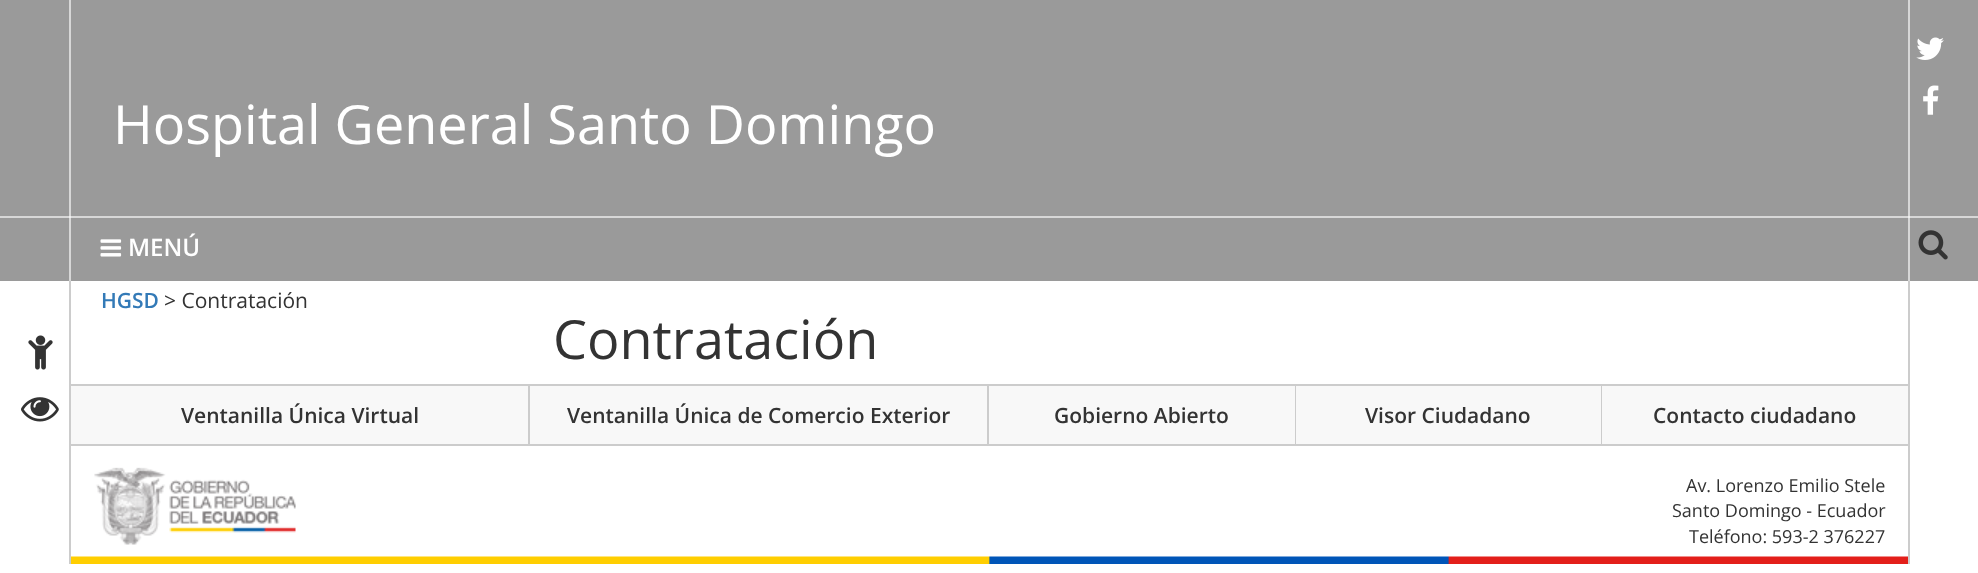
<?xml version="1.0" encoding="UTF-8"?>
<svg xmlns="http://www.w3.org/2000/svg" xmlns:xlink="http://www.w3.org/1999/xlink" width="1978" height="573">
  <rect width="100%" height="100%" fill="#ffffff" />
  <rect width="1978" height="281" fill="#9a9a9a" />
  <rect y="216" width="1978" height="2" fill="#d7d7d7" />
  <rect x="1908" width="2" height="281" fill="#d7d7d7" />
  <rect x="1908" y="216" width="2" height="2" fill="#efefef" />
  <rect x="69" width="2" height="281" fill="#d7d7d7" />
  <rect x="69" y="216" width="2" height="2" fill="#efefef" />
  <image x="1916" y="37" width="28" height="23" xlink:href="image1.png" />
  <image x="1923" y="85" width="16" height="30" xlink:href="image2.png" />
  <image x="100" y="239" width="22" height="18" xlink:href="image3.png" />
  <image x="1918" y="230" width="30" height="30" xlink:href="image4.png" />
  <image x="28" y="335" width="25" height="35" xlink:href="image5.png" />
  <image x="21" y="397" width="38" height="25" xlink:href="image6.png" />
  <rect x="1908" y="281" width="2" height="283" fill="#cccccc" />
  <rect x="69" y="281" width="2" height="283" fill="#cccccc" />
  <image x="71" y="556" width="1837" height="8" xlink:href="image7.png" />
  <rect x="71" y="384" width="1837" height="2" fill="#cccccc" />
  <rect x="71" y="444" width="1837" height="2" fill="#cccccc" />
  <rect x="528" y="386" width="2" height="58" fill="#cccccc" />
  <rect x="71" y="386" width="457" height="58" fill="#f8f8f8" />
  <rect x="987" y="386" width="2" height="58" fill="#cccccc" />
  <rect x="530" y="386" width="457" height="58" fill="#f8f8f8" />
  <rect x="1295" y="386" width="1" height="58" fill="#cccccc" />
  <rect x="989" y="386" width="306" height="58" fill="#f8f8f8" />
  <rect x="1601" y="386" width="1" height="58" fill="#cccccc" />
  <rect x="1296" y="386" width="305" height="58" fill="#f8f8f8" />
  <rect x="1602" y="386" width="306" height="58" fill="#f8f8f8" />
  <image x="94" y="467" width="202" height="78" xlink:href="image8.png" />
  <text x="113" y="144" style="font-family: Open Sans; font-size: 54px; fill: #ffffff">Hospital General Santo Domingo</text>
  <text x="128" y="256" style="font-family: Open Sans; font-size: 24px; font-weight: 600; fill: #ffffff">MENÚ</text>
  <text x="101" y="308" style="font-family: Open Sans; font-size: 21px; font-weight: 600; fill: #337ab7">HGSD</text>
  <text x="164" y="308" style="font-family: Open Sans; font-size: 21px; fill: #333333">&gt; Contratación</text>
  <text x="553" y="359" style="font-family: Open Sans; font-size: 54px; fill: #333333">Contratación</text>
  <text x="181" y="423" style="font-family: Open Sans; font-size: 21px; font-weight: 600; fill: #333333">Ventanilla Única Virtual</text>
  <text x="567" y="423" style="font-family: Open Sans; font-size: 21px; font-weight: 600; fill: #333333">Ventanilla Única de Comercio Exterior</text>
  <text x="1054" y="423" style="font-family: Open Sans; font-size: 21px; font-weight: 600; fill: #333333">Gobierno Abierto</text>
  <text x="1365" y="423" style="font-family: Open Sans; font-size: 21px; font-weight: 600; fill: #333333">Visor Ciudadano</text>
  <text x="1653" y="423" style="font-family: Open Sans; font-size: 21px; font-weight: 600; fill: #333333">Contacto ciudadano</text>
  <text x="1686" y="492" style="font-family: Open Sans; font-size: 18px; fill: #333333">Av. Lorenzo Emilio Stele</text>
  <text x="1672" y="517" style="font-family: Open Sans; font-size: 18px; fill: #333333">Santo Domingo - Ecuador</text>
  <text x="1689" y="543" style="font-family: Open Sans; font-size: 18px; fill: #333333">Teléfono: 593-2 376227</text>
</svg>
